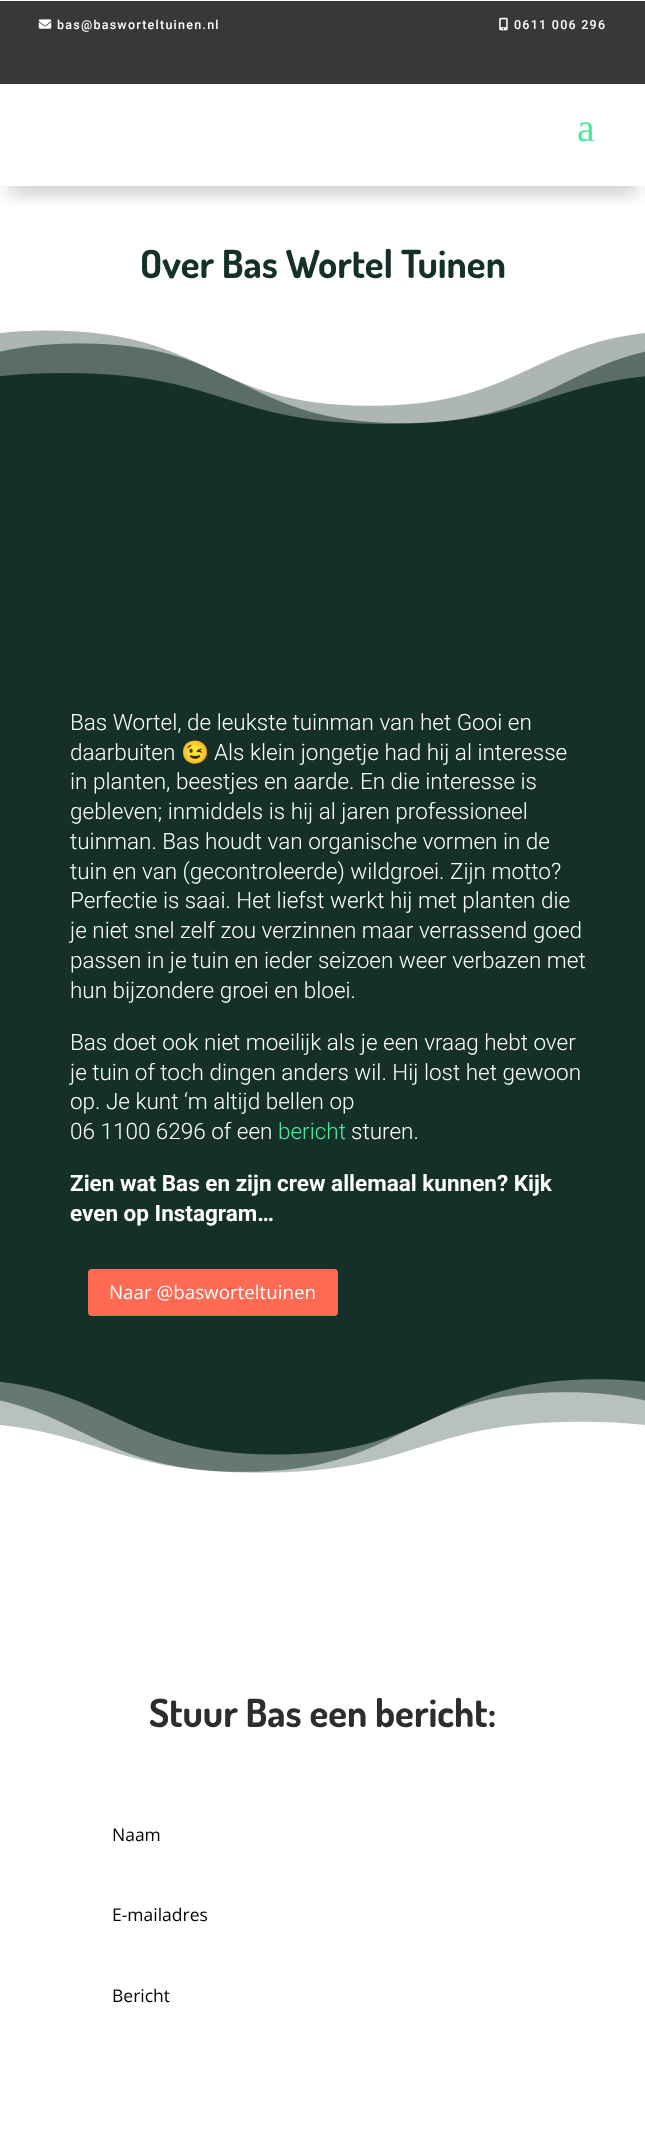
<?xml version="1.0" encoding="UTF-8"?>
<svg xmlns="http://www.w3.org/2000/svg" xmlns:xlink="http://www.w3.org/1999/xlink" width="645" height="2137">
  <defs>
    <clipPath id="clip1"><rect x="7" y="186" width="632" height="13" /></clipPath>
    <clipPath id="clip2"><rect x="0" y="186" width="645" height="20" /></clipPath>
  </defs>
  <rect width="100%" height="100%" fill="#ffffff" />
  <g clip-path="url(#clip1)">
    <rect x="8" y="23" width="630" height="171" fill="#000000" fill-opacity="0.06" filter="blur(11px)" />
  </g>
  <rect y="1" width="645" height="83" fill="#383838" />
  <image x="38" y="19" width="14" height="10" xlink:href="image1.png" />
  <image x="499" y="17" width="9" height="14" xlink:href="image2.png" />
  <g clip-path="url(#clip2)">
    <rect x="8" y="106" width="630" height="88" fill="#000000" fill-opacity="0.15" filter="blur(11px)" />
  </g>
  <rect y="330" width="645" height="1049" fill="#143029" />
  <image x="0" y="330" width="645" height="94" xlink:href="image3.png" />
  <rect x="89.5" y="1270.5" width="247" height="44" rx="2.5" fill="#ff6a54" stroke="#ff6a54" stroke-width="3" />
  <image x="0" y="1379" width="645" height="94" xlink:href="image4.png" />
  <text x="57" y="29" style="font-family: Roboto; font-size: 12.5px; font-weight: 500; letter-spacing: 1.25px; fill: #ffffff">bas@basworteltuinen.nl</text>
  <text x="514" y="29" style="font-family: Roboto; font-size: 12.5px; font-weight: 500; letter-spacing: 1.25px; fill: #ffffff">0611 006 296</text>
  <text x="577" y="141" style="font-family: Liberation Serif; font-size: 40px; fill: #4beb9e">a</text>
  <text x="140" y="278" style="font-family: Dosis; font-size: 38.75px; font-weight: bold; fill: #143029">Over Bas Wortel Tuinen</text>
  <text x="70" y="730" style="font-family: Roboto; font-size: 22.5px; font-weight: 300; fill: #ffffff">Bas Wortel, de leukste tuinman van het Gooi en</text>
  <text x="70" y="760" style="font-family: Roboto; font-size: 22.5px; font-weight: 300; fill: #ffffff">daarbuiten</text>
  <text x="181" y="760" style="font-family: Noto Color Emoji; font-size: 22.5px; fill: #ffffff">😉</text>
  <text x="214" y="760" style="font-family: Roboto; font-size: 22.5px; font-weight: 300; fill: #ffffff">Als klein jongetje had hij al interesse</text>
  <text x="70" y="789" style="font-family: Roboto; font-size: 22.5px; font-weight: 300; fill: #ffffff">in planten, beestjes en aarde. En die interesse is</text>
  <text x="70" y="819" style="font-family: Roboto; font-size: 22.5px; font-weight: 300; fill: #ffffff">gebleven; inmiddels is hij al jaren professioneel</text>
  <text x="70" y="849" style="font-family: Roboto; font-size: 22.5px; font-weight: 300; fill: #ffffff">tuinman. Bas houdt van organische vormen in de</text>
  <text x="70" y="879" style="font-family: Roboto; font-size: 22.5px; font-weight: 300; fill: #ffffff">tuin en van (gecontroleerde) wildgroei. Zijn motto?</text>
  <text x="70" y="908" style="font-family: Roboto; font-size: 22.5px; font-weight: 300; fill: #ffffff">Perfectie is saai. Het liefst werkt hij met planten die</text>
  <text x="70" y="938" style="font-family: Roboto; font-size: 22.5px; font-weight: 300; fill: #ffffff">je niet snel zelf zou verzinnen maar verrassend goed</text>
  <text x="70" y="968" style="font-family: Roboto; font-size: 22.5px; font-weight: 300; fill: #ffffff">passen in je tuin en ieder seizoen weer verbazen met</text>
  <text x="70" y="998" style="font-family: Roboto; font-size: 22.5px; font-weight: 300; fill: #ffffff">hun bijzondere groei en bloei.</text>
  <text x="70" y="1050" style="font-family: Roboto; font-size: 22.5px; font-weight: 300; fill: #ffffff">Bas doet ook niet moeilijk als je een vraag hebt over</text>
  <text x="70" y="1080" style="font-family: Roboto; font-size: 22.5px; font-weight: 300; fill: #ffffff">je tuin of toch dingen anders wil. Hij lost het gewoon</text>
  <text x="70" y="1109" style="font-family: Roboto; font-size: 22.5px; font-weight: 300; fill: #ffffff">op. Je kunt ‘m altijd bellen op</text>
  <text x="70" y="1139" style="font-family: Roboto; font-size: 22.5px; font-weight: 300; fill: #ffffff">06 1100 6296 of een</text>
  <text x="278" y="1139" style="font-family: Roboto; font-size: 22.5px; font-weight: 300; fill: #4beb9e">bericht</text>
  <text x="351" y="1139" style="font-family: Roboto; font-size: 22.5px; font-weight: 300; fill: #ffffff">sturen.</text>
  <text x="70" y="1191" style="font-family: Roboto; font-size: 22.5px; font-weight: bold; fill: #ffffff">Zien wat Bas en zijn crew allemaal kunnen? Kijk</text>
  <text x="70" y="1221" style="font-family: Roboto; font-size: 22.5px; font-weight: bold; fill: #ffffff">even op Instagram…</text>
  <text x="109" y="1299" style="font-family: Open Sans; font-size: 18.75px; fill: #ffffff">Naar @basworteltuinen</text>
  <text x="149" y="1727" style="font-family: Dosis; font-size: 38.75px; font-weight: bold; fill: #2d2d2d">Stuur Bas een bericht:</text>
  <text x="112" y="1841" style="font-family: Open Sans; font-size: 17.5px; fill: #000000">Naam</text>
  <text x="112" y="1921" style="font-family: Open Sans; font-size: 17.5px; fill: #000000">E-mailadres</text>
  <text x="112" y="2002" style="font-family: Open Sans; font-size: 17.5px; fill: #000000">Bericht</text>
</svg>
